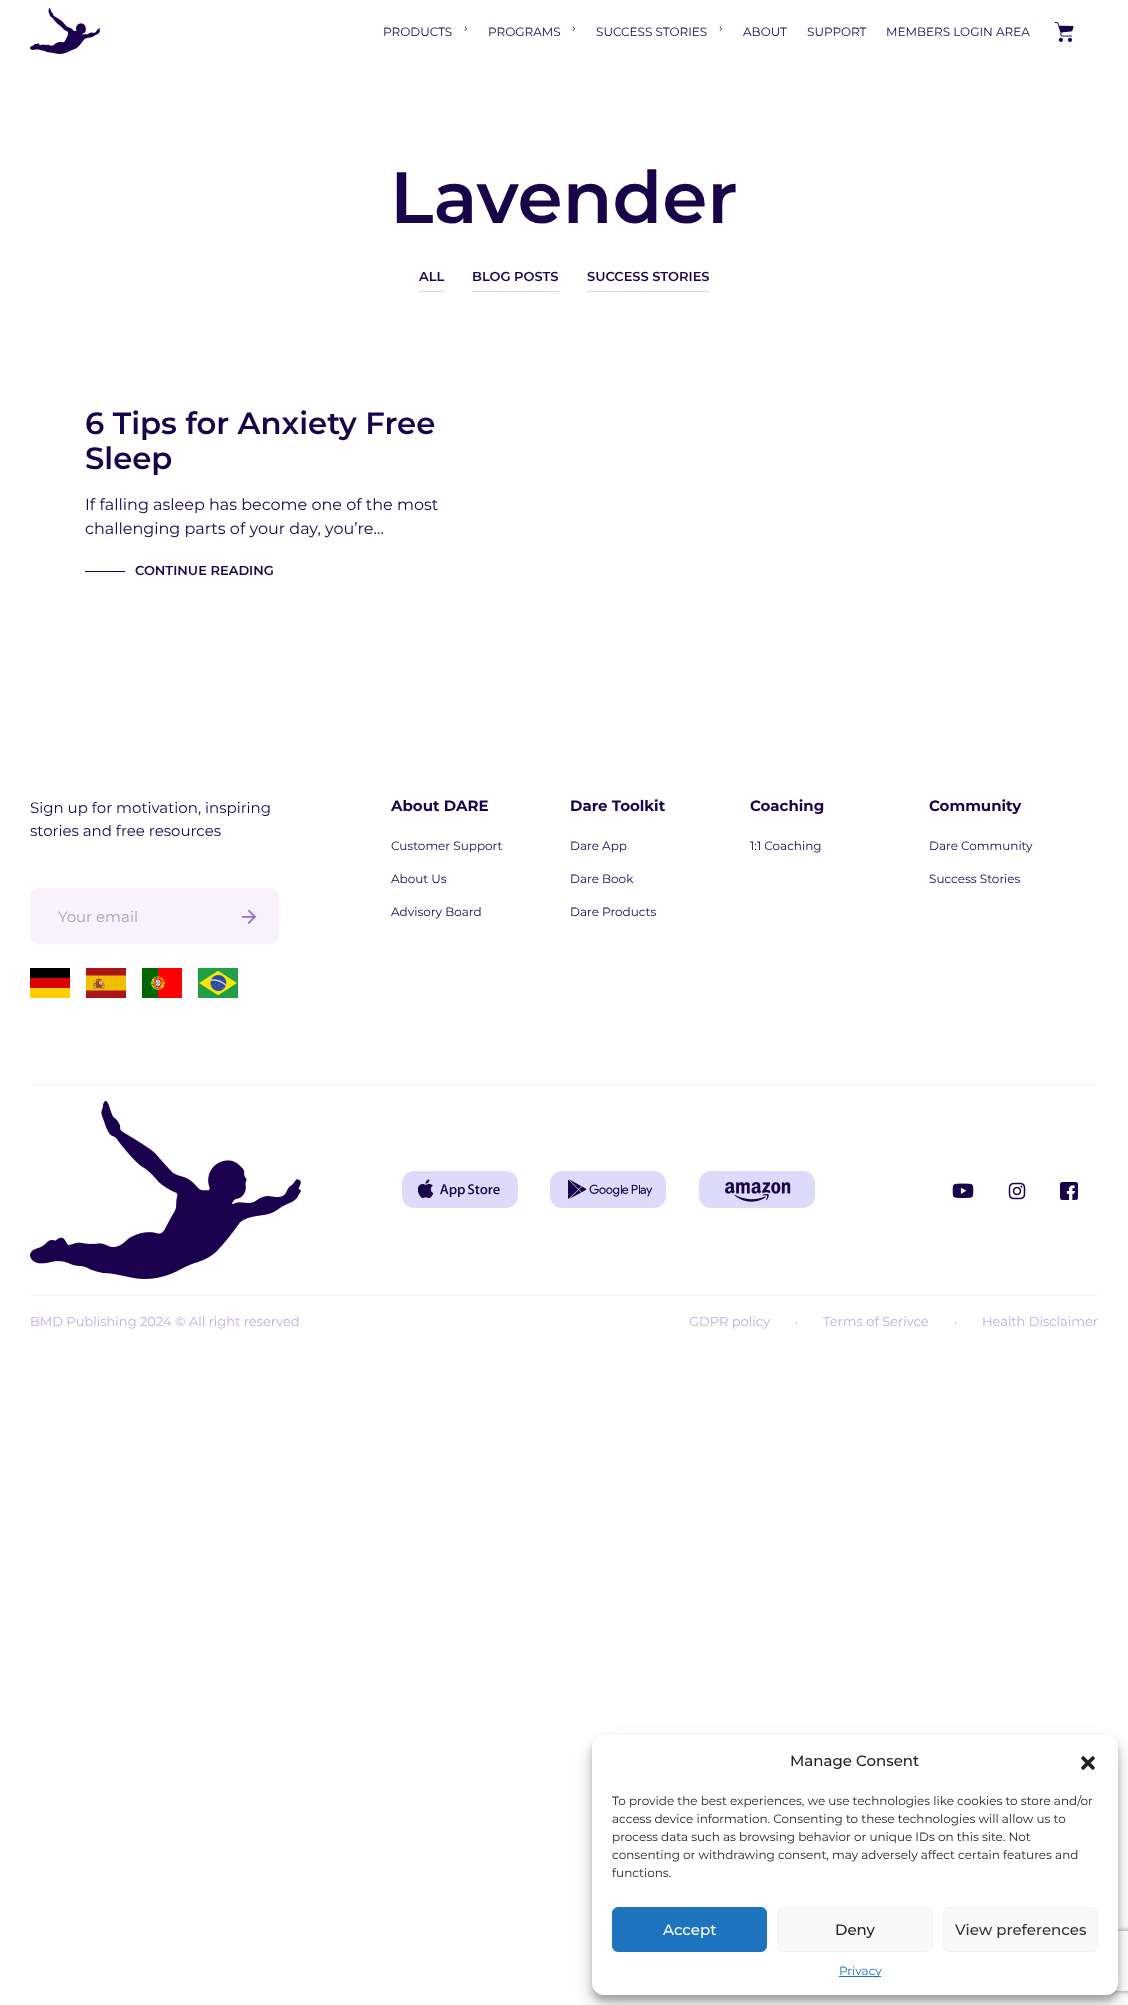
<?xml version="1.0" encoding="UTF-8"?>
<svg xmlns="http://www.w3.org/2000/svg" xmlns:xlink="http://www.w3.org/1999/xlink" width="1128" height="2005">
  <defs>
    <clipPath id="clip1"><path d="M 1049 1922 h 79 v 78 h -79 z m 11 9 h 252 c 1 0 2 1 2 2 v 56 c 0 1 -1 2 -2 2 h -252 c -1 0 -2 -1 -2 -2 v -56 c 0 -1 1 -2 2 -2 z" clip-rule="evenodd" /></clipPath>
  </defs>
  <rect width="100%" height="100%" fill="#ffffff" />
  <image x="30" y="8" width="70" height="46" xlink:href="image1.png" />
  <image x="1054" y="22" width="20" height="20" xlink:href="image2.png" />
  <rect x="419" y="291" width="25" height="1" fill="#ddd9e4" />
  <rect x="472" y="291" width="87" height="1" fill="#ddd9e4" />
  <rect x="587" y="291" width="122" height="1" fill="#ddd9e4" />
  <rect x="85" y="571" width="40" height="1" fill="#190449" />
  <rect x="30" y="1084" width="1068" height="1" fill="#f8f2ff" />
  <rect x="30" y="888" width="249" height="56" rx="8" fill="#f8f2ff" />
  <image x="241" y="909" width="15" height="15" xlink:href="image3.png" />
  <rect x="30" y="988" width="40" height="10" fill="#ffce00" />
  <rect x="30" y="968" width="40" height="10" fill="#000000" />
  <rect x="30" y="978" width="40" height="10" fill="#dd0000" />
  <image x="86" y="968" width="40" height="30" xlink:href="image4.png" />
  <image x="142" y="968" width="40" height="30" xlink:href="image5.png" />
  <image x="198" y="968" width="40" height="30" xlink:href="image6.png" />
  <rect x="30" y="1295" width="1068" height="1" fill="#f8f2ff" />
  <image x="30" y="1101" width="271" height="178" xlink:href="image7.png" />
  <image x="402" y="1171" width="116" height="37" xlink:href="image8.png" />
  <image x="550" y="1171" width="116" height="37" xlink:href="image9.png" />
  <image x="699" y="1171" width="116" height="37" xlink:href="image10.png" />
  <image x="952" y="1183" width="22" height="15" xlink:href="image11.png" />
  <image x="1008" y="1182" width="18" height="18" xlink:href="image12.png" />
  <image x="1060" y="1182" width="18" height="18" xlink:href="image13.png" />
  <rect x="592" y="1741" width="526" height="260" rx="12" fill="#000000" fill-opacity="0.23" filter="blur(3px)" />
  <rect x="592" y="1745" width="526" height="260" rx="12" fill="#000000" fill-opacity="0.19" filter="blur(10px)" />
  <g clip-path="url(#clip1)">
    <rect x="1058" y="1931" width="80" height="60" rx="2" fill="#808080" filter="blur(2.5px)" />
  </g>
  <rect x="592" y="1735" width="526" height="260" rx="12" fill="#ffffff" />
  <image x="1081" y="1756" width="14" height="14" xlink:href="image14.png" />
  <rect x="612.5" y="1907.5" width="154" height="44" rx="5.5" fill="#1e73be" stroke="#1e73be" />
  <rect x="777.5" y="1907.5" width="155" height="44" rx="5.5" fill="#f9f9f9" stroke="#f2f2f2" />
  <rect x="943.5" y="1907.5" width="154" height="44" rx="5.5" fill="#f9f9f9" stroke="#f2f2f2" />
  <rect x="839" y="1976" width="42" height="1" fill="#1e73be" />
  <text x="383" y="36" style="font-family: Montserrat; font-size: 12px; fill: #190449">PRODUCTS</text>
  <text x="464" y="32" style="font-family: Montserrat; font-size: 12px; fill: #190449">›</text>
  <text x="488" y="36" style="font-family: Montserrat; font-size: 12px; fill: #190449">PROGRAMS</text>
  <text x="572" y="32" style="font-family: Montserrat; font-size: 12px; fill: #190449">›</text>
  <text x="596" y="36" style="font-family: Montserrat; font-size: 12px; fill: #190449">SUCCESS STORIES</text>
  <text x="719" y="32" style="font-family: Montserrat; font-size: 12px; fill: #190449">›</text>
  <text x="743" y="36" style="font-family: Montserrat; font-size: 12px; fill: #190449">ABOUT</text>
  <text x="807" y="36" style="font-family: Montserrat; font-size: 12px; fill: #190449">SUPPORT</text>
  <text x="886" y="36" style="font-family: Montserrat; font-size: 12px; fill: #190449">MEMBERS LOGIN AREA</text>
  <text x="390" y="223" style="font-family: Montserrat; font-size: 72.5px; font-weight: 600; fill: #190449">Lavender</text>
  <text x="419" y="281" style="font-family: Montserrat; font-size: 13px; font-weight: 600; fill: #190449">ALL</text>
  <text x="472" y="281" style="font-family: Montserrat; font-size: 13px; font-weight: 600; fill: #190449">BLOG POSTS</text>
  <text x="587" y="281" style="font-family: Montserrat; font-size: 13px; font-weight: 600; fill: #190449">SUCCESS STORIES</text>
  <text x="85" y="434" style="font-family: Montserrat; font-size: 30.7px; font-weight: 600; fill: #190449">6 Tips for Anxiety Free</text>
  <text x="85" y="469" style="font-family: Montserrat; font-size: 30.7px; font-weight: 600; fill: #190449">Sleep</text>
  <text x="85" y="510" style="font-family: Montserrat; font-size: 16px; fill: #190449">If falling asleep has become one of the most</text>
  <text x="85" y="534" style="font-family: Montserrat; font-size: 16px; fill: #190449">challenging parts of your day, you’re…</text>
  <text x="135" y="575" style="font-family: Montserrat; font-size: 13px; font-weight: 600; fill: #190449">CONTINUE READING</text>
  <text x="30" y="813" style="font-family: Montserrat; font-size: 15px; fill: #190449">Sign up for motivation, inspiring</text>
  <text x="30" y="836" style="font-family: Montserrat; font-size: 15px; fill: #190449">stories and free resources</text>
  <text x="58" y="922" style="font-family: Montserrat; font-size: 15px; fill: #a69dbb">Your email</text>
  <text x="391" y="811" style="font-family: Montserrat; font-size: 15px; font-weight: bold; fill: #190449">About DARE</text>
  <text x="391" y="850" style="font-family: Montserrat; font-size: 12px; fill: #190449">Customer Support</text>
  <text x="391" y="883" style="font-family: Montserrat; font-size: 12px; fill: #190449">About Us</text>
  <text x="391" y="916" style="font-family: Montserrat; font-size: 12px; fill: #190449">Advisory Board</text>
  <text x="570" y="811" style="font-family: Montserrat; font-size: 15px; font-weight: bold; fill: #190449">Dare Toolkit</text>
  <text x="570" y="850" style="font-family: Montserrat; font-size: 12px; fill: #190449">Dare App</text>
  <text x="570" y="883" style="font-family: Montserrat; font-size: 12px; fill: #190449">Dare Book</text>
  <text x="570" y="916" style="font-family: Montserrat; font-size: 12px; fill: #190449">Dare Products</text>
  <text x="750" y="811" style="font-family: Montserrat; font-size: 15px; font-weight: bold; fill: #190449">Coaching</text>
  <text x="750" y="850" style="font-family: Montserrat; font-size: 12px; fill: #190449">1:1 Coaching</text>
  <text x="929" y="811" style="font-family: Montserrat; font-size: 15px; font-weight: bold; fill: #190449">Community</text>
  <text x="929" y="850" style="font-family: Montserrat; font-size: 12px; fill: #190449">Dare Community</text>
  <text x="929" y="883" style="font-family: Montserrat; font-size: 12px; fill: #190449">Success Stories</text>
  <text x="30" y="1326" style="font-family: Montserrat; font-size: 13px; fill: #c1ade1">BMD Publishing 2024 © All right reserved</text>
  <text x="689" y="1326" style="font-family: Montserrat; font-size: 13px; fill: #c1ade1">GDPR policy</text>
  <text x="795" y="1326" style="font-family: Montserrat; font-size: 12px; fill: #c1ade1">·</text>
  <text x="823" y="1326" style="font-family: Montserrat; font-size: 13px; fill: #c1ade1">Terms of Serivce</text>
  <text x="954" y="1326" style="font-family: Montserrat; font-size: 12px; fill: #c1ade1">·</text>
  <text x="982" y="1326" style="font-family: Montserrat; font-size: 13px; fill: #c1ade1">Health Disclaimer</text>
  <text x="790" y="1766" style="font-family: Montserrat; font-size: 15px; font-weight: 500; fill: #222222">Manage Consent</text>
  <text x="612" y="1805" style="font-family: Montserrat; font-size: 12px; fill: #222222">To provide the best experiences, we use technologies like cookies to store and/or</text>
  <text x="612" y="1823" style="font-family: Montserrat; font-size: 12px; fill: #222222">access device information. Consenting to these technologies will allow us to</text>
  <text x="612" y="1841" style="font-family: Montserrat; font-size: 12px; fill: #222222">process data such as browsing behavior or unique IDs on this site. Not</text>
  <text x="612" y="1859" style="font-family: Montserrat; font-size: 12px; fill: #222222">consenting or withdrawing consent, may adversely affect certain features and</text>
  <text x="612" y="1877" style="font-family: Montserrat; font-size: 12px; fill: #222222">functions.</text>
  <text x="663" y="1935" style="font-family: Montserrat; font-size: 15px; font-weight: 500; fill: #ffffff">Accept</text>
  <text x="835" y="1935" style="font-family: Montserrat; font-size: 15px; font-weight: 500; fill: #222222">Deny</text>
  <text x="955" y="1935" style="font-family: Montserrat; font-size: 15px; font-weight: 500; fill: #333333">View preferences</text>
  <text x="839" y="1975" style="font-family: Montserrat; font-size: 12px; fill: #1e73be">Privacy</text>
</svg>
